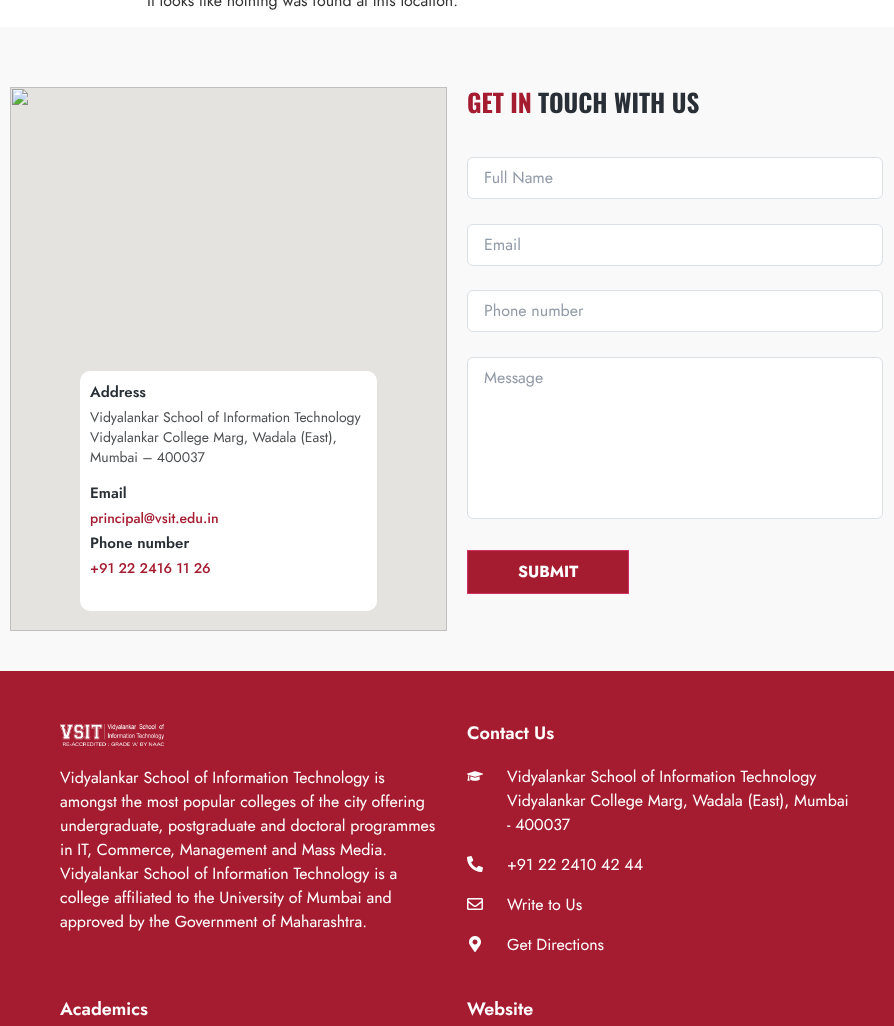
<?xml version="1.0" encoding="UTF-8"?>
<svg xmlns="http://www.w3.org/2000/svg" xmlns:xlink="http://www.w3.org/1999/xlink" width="894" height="1026">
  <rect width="100%" height="100%" fill="#ffffff" />
  <rect y="27" width="894" height="644" fill="#f9f9f9" />
  <image x="10" y="87" width="437" height="544" xlink:href="image1.png" />
  <rect x="80" y="371" width="297" height="240" rx="10" fill="#ffffff" />
  <rect x="467.5" y="157.5" width="415" height="41" rx="5.5" fill="#ffffff" stroke="#dae0e6" />
  <rect x="467.5" y="224.5" width="415" height="41" rx="5.5" fill="#ffffff" stroke="#dae0e6" />
  <rect x="467.5" y="290.5" width="415" height="41" rx="5.5" fill="#ffffff" stroke="#dae0e6" />
  <rect x="467.5" y="357.5" width="415" height="161" rx="5.5" fill="#ffffff" stroke="#dae0e6" />
  <rect x="467.5" y="550.5" width="161" height="43" fill="#a51c30" stroke="#cc3366" />
  <rect y="671" width="894" height="355" fill="#a51c30" />
  <image x="60" y="724" width="104" height="22" xlink:href="image2.png" />
  <image x="467" y="771" width="16" height="10" xlink:href="image3.png" />
  <image x="467" y="856" width="16" height="16" xlink:href="image4.png" />
  <image x="467" y="898" width="16" height="12" xlink:href="image5.png" />
  <image x="469" y="936" width="12" height="16" xlink:href="image6.png" />
  <text x="147" y="6" style="font-family: Jost; font-size: 16px; fill: #333333">It looks like nothing was found at this location.</text>
  <text x="90" y="397" style="font-family: Jost; font-size: 15px; font-weight: 600; fill: #292f36">Address</text>
  <text x="90" y="422" style="font-family: Jost; font-size: 14px; fill: #4d5053">Vidyalankar School of Information Technology</text>
  <text x="90" y="442" style="font-family: Jost; font-size: 14px; fill: #4d5053">Vidyalankar College Marg, Wadala (East),</text>
  <text x="90" y="462" style="font-family: Jost; font-size: 14px; fill: #4d5053">Mumbai – 400037</text>
  <text x="90" y="498" style="font-family: Jost; font-size: 15px; font-weight: 600; fill: #292f36">Email</text>
  <text x="90" y="523" style="font-family: Jost; font-size: 14px; font-weight: 500; fill: #a51c30">principal@vsit.edu.in</text>
  <text x="90" y="548" style="font-family: Jost; font-size: 15px; font-weight: 600; fill: #292f36">Phone number</text>
  <text x="90" y="573" style="font-family: Jost; font-size: 14px; font-weight: 500; fill: #a51c30">+91 22 2416 11 26</text>
  <text x="467" y="113" style="font-family: Oswald; font-size: 25px; font-weight: bold; fill: #a51c30">GET IN</text>
  <text x="538" y="113" style="font-family: Oswald; font-size: 25px; font-weight: bold; fill: #292f36">TOUCH WITH US</text>
  <text x="484" y="183" style="font-family: Jost; font-size: 16px; fill: #919ba7">Full Name</text>
  <text x="484" y="250" style="font-family: Jost; font-size: 16px; fill: #919ba7">Email</text>
  <text x="484" y="316" style="font-family: Jost; font-size: 16px; fill: #919ba7">Phone number</text>
  <text x="484" y="383" style="font-family: Jost; font-size: 16px; fill: #919ba7">Message</text>
  <text x="518" y="577" style="font-family: Jost; font-size: 16px; font-weight: bold; fill: #ffffff">SUBMIT</text>
  <text x="60" y="783" style="font-family: Jost; font-size: 16px; fill: #ffffff">Vidyalankar School of Information Technology is</text>
  <text x="60" y="807" style="font-family: Jost; font-size: 16px; fill: #ffffff">amongst the most popular colleges of the city offering</text>
  <text x="60" y="831" style="font-family: Jost; font-size: 16px; fill: #ffffff">undergraduate, postgraduate and doctoral programmes</text>
  <text x="60" y="855" style="font-family: Jost; font-size: 16px; fill: #ffffff">in IT, Commerce, Management and Mass Media.</text>
  <text x="60" y="879" style="font-family: Jost; font-size: 16px; fill: #ffffff">Vidyalankar School of Information Technology is a</text>
  <text x="60" y="903" style="font-family: Jost; font-size: 16px; fill: #ffffff">college affiliated to the University of Mumbai and</text>
  <text x="60" y="927" style="font-family: Jost; font-size: 16px; fill: #ffffff">approved by the Government of Maharashtra.</text>
  <text x="467" y="739" style="font-family: Jost; font-size: 18px; font-weight: 600; fill: #ffffff">Contact Us</text>
  <text x="507" y="782" style="font-family: Jost; font-size: 16px; fill: #ffffff">Vidyalankar School of Information Technology</text>
  <text x="507" y="806" style="font-family: Jost; font-size: 16px; fill: #ffffff">Vidyalankar College Marg, Wadala (East), Mumbai</text>
  <text x="507" y="830" style="font-family: Jost; font-size: 16px; fill: #ffffff">- 400037</text>
  <text x="507" y="870" style="font-family: Jost; font-size: 16px; fill: #ffffff">+91 22 2410 42 44</text>
  <text x="507" y="910" style="font-family: Jost; font-size: 16px; fill: #ffffff">Write to Us</text>
  <text x="507" y="950" style="font-family: Jost; font-size: 16px; fill: #ffffff">Get Directions</text>
  <text x="60" y="1015" style="font-family: Jost; font-size: 18px; font-weight: 600; fill: #ffffff">Academics</text>
  <text x="467" y="1015" style="font-family: Jost; font-size: 18px; font-weight: 600; fill: #ffffff">Website</text>
</svg>
